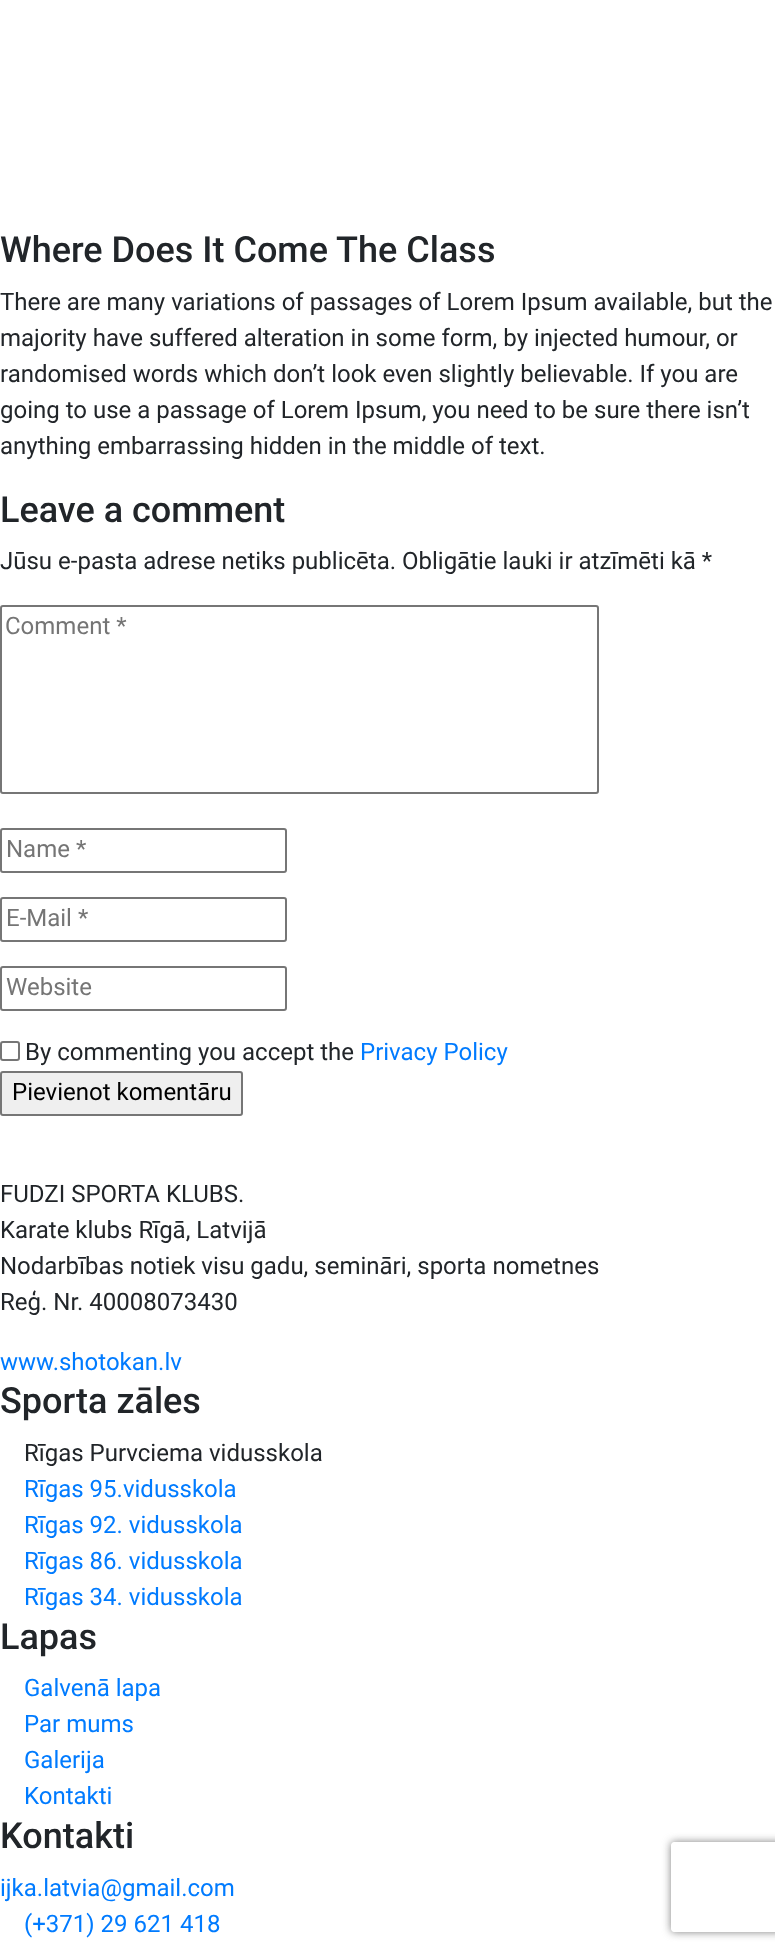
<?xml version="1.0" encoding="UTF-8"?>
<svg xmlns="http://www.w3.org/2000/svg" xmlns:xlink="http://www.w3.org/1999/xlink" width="775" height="1953">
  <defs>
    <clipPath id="clip1"><path d="M 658 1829 h 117 v 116 h -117 z m 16 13 h 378 c 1.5 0 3 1.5 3 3 v 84 c 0 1.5 -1.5 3 -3 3 h -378 c -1.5 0 -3 -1.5 -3 -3 v -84 c 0 -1.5 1.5 -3 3 -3 z" clip-rule="evenodd" /></clipPath>
  </defs>
  <rect width="100%" height="100%" fill="#ffffff" />
  <rect x="1" y="606" width="597" height="187" rx="2" fill="none" stroke="#767676" stroke-width="2" />
  <rect x="1" y="829" width="285" height="43" rx="2" fill="none" stroke="#767676" stroke-width="2" />
  <rect x="1" y="898" width="285" height="43" rx="2" fill="none" stroke="#767676" stroke-width="2" />
  <rect x="1" y="967" width="285" height="43" rx="2" fill="none" stroke="#767676" stroke-width="2" />
  <rect x="1" y="1042" width="18" height="18" rx="2" fill="none" stroke="#767676" stroke-width="2" />
  <rect x="1" y="1072" width="241" height="43" rx="2" fill="#efefef" stroke="#767676" stroke-width="2" />
  <g clip-path="url(#clip1)">
    <rect x="671" y="1842" width="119" height="90" rx="3" fill="#808080" filter="blur(4px)" />
  </g>
  <text x="0" y="262" style="font-family: Roboto; font-size: 36px; font-weight: 500; fill: #212529">Where Does It Come The Class</text>
  <text x="0" y="310" style="font-family: Roboto; font-size: 24px; fill: #212529">There are many variations of passages of Lorem Ipsum available, but the</text>
  <text x="0" y="346" style="font-family: Roboto; font-size: 24px; fill: #212529">majority have suffered alteration in some form, by injected humour, or</text>
  <text x="0" y="382" style="font-family: Roboto; font-size: 24px; fill: #212529">randomised words which don’t look even slightly believable. If you are</text>
  <text x="0" y="418" style="font-family: Roboto; font-size: 24px; fill: #212529">going to use a passage of Lorem Ipsum, you need to be sure there isn’t</text>
  <text x="0" y="454" style="font-family: Roboto; font-size: 24px; fill: #212529">anything embarrassing hidden in the middle of text.</text>
  <text x="0" y="522" style="font-family: Roboto; font-size: 36px; font-weight: 500; fill: #212529">Leave a comment</text>
  <text x="0" y="569" style="font-family: Roboto; font-size: 24px; fill: #212529">Jūsu e-pasta adrese netiks publicēta. Obligātie lauki ir atzīmēti kā *</text>
  <text x="5" y="634" style="font-family: Roboto; font-size: 24px; fill: #757575">Comment *</text>
  <text x="6" y="857" style="font-family: Roboto; font-size: 24px; fill: #757575">Name *</text>
  <text x="6" y="926" style="font-family: Roboto; font-size: 24px; fill: #757575">E-Mail *</text>
  <text x="6" y="995" style="font-family: Roboto; font-size: 24px; fill: #757575">Website</text>
  <text x="25" y="1060" style="font-family: Roboto; font-size: 24px; fill: #212529">By commenting you accept the</text>
  <text x="360" y="1060" style="font-family: Roboto; font-size: 24px; fill: #007bff">Privacy Policy</text>
  <text x="12" y="1100" style="font-family: Roboto; font-size: 24px; fill: #000000">Pievienot komentāru</text>
  <text x="0" y="1202" style="font-family: Roboto; font-size: 24px; fill: #212529">FUDZI SPORTA KLUBS.</text>
  <text x="0" y="1238" style="font-family: Roboto; font-size: 24px; fill: #212529">Karate klubs Rīgā, Latvijā</text>
  <text x="0" y="1274" style="font-family: Roboto; font-size: 24px; fill: #212529">Nodarbības notiek visu gadu, semināri, sporta nometnes</text>
  <text x="0" y="1310" style="font-family: Roboto; font-size: 24px; fill: #212529">Reģ. Nr. 40008073430</text>
  <text x="0" y="1370" style="font-family: Roboto; font-size: 24px; fill: #007bff">www.shotokan.lv</text>
  <text x="0" y="1413" style="font-family: Roboto; font-size: 36px; font-weight: 500; fill: #212529">Sporta zāles</text>
  <text x="24" y="1461" style="font-family: Roboto; font-size: 24px; fill: #212529">Rīgas Purvciema vidusskola</text>
  <text x="24" y="1497" style="font-family: Roboto; font-size: 24px; fill: #007bff">Rīgas 95.vidusskola</text>
  <text x="24" y="1533" style="font-family: Roboto; font-size: 24px; fill: #007bff">Rīgas 92. vidusskola</text>
  <text x="24" y="1569" style="font-family: Roboto; font-size: 24px; fill: #007bff">Rīgas 86. vidusskola</text>
  <text x="24" y="1605" style="font-family: Roboto; font-size: 24px; fill: #007bff">Rīgas 34. vidusskola</text>
  <text x="0" y="1649" style="font-family: Roboto; font-size: 36px; font-weight: 500; fill: #212529">Lapas</text>
  <text x="24" y="1696" style="font-family: Roboto; font-size: 24px; fill: #007bff">Galvenā lapa</text>
  <text x="24" y="1732" style="font-family: Roboto; font-size: 24px; fill: #007bff">Par mums</text>
  <text x="24" y="1768" style="font-family: Roboto; font-size: 24px; fill: #007bff">Galerija</text>
  <text x="24" y="1804" style="font-family: Roboto; font-size: 24px; fill: #007bff">Kontakti</text>
  <text x="0" y="1848" style="font-family: Roboto; font-size: 36px; font-weight: 500; fill: #212529">Kontakti</text>
  <text x="0" y="1896" style="font-family: Roboto; font-size: 24px; fill: #007bff">ijka.latvia@gmail.com</text>
  <text x="24" y="1932" style="font-family: Roboto; font-size: 24px; fill: #007bff">(+371) 29 621 418</text>
</svg>
